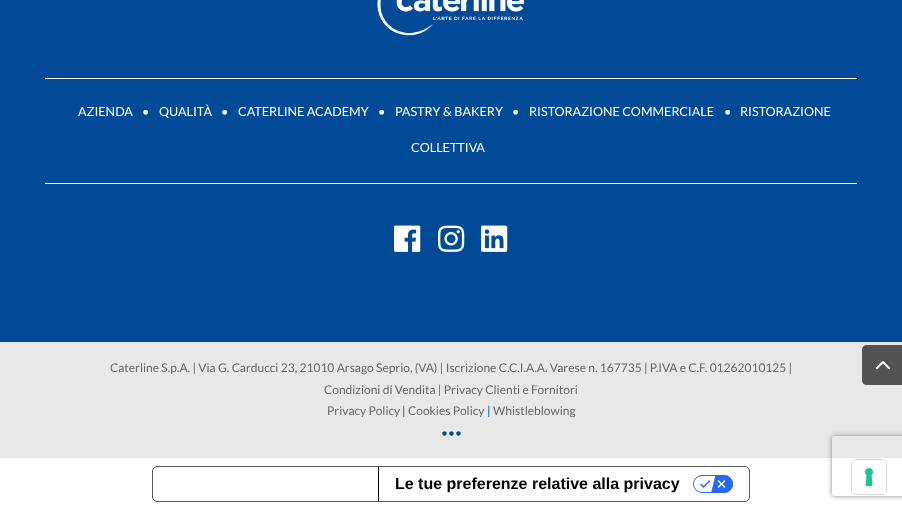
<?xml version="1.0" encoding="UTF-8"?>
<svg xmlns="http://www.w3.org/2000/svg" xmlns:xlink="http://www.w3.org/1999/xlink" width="902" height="510">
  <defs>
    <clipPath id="clip1"><path d="M 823 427 h 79 v 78 h -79 z m 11 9 h 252 c 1 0 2 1 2 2 v 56 c 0 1 -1 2 -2 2 h -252 c -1 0 -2 -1 -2 -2 v -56 c 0 -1 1 -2 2 -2 z" clip-rule="evenodd" /></clipPath>
  </defs>
  <rect width="100%" height="100%" fill="#ffffff" />
  <rect width="902" height="342" fill="#004a98" />
  <image x="377" y="0" width="147" height="36" xlink:href="image1.png" />
  <rect x="45" y="78" width="812" height="1" fill="#ffffff" />
  <rect x="45" y="183" width="812" height="1" fill="#ffffff" />
  <image x="394" y="225" width="27" height="27" xlink:href="image2.png" />
  <image x="438" y="225" width="27" height="27" xlink:href="image3.png" />
  <image x="481" y="225" width="27" height="27" xlink:href="image4.png" />
  <rect y="342" width="902" height="116" fill="#e8e8e8" />
  <path d="M 867 345 h 35 v 40 h -35 c -3 0 -5 -2 -5 -5 v -30 c 0 -3 2 -5 5 -5 z" fill="#8b8b8b" />
  <image x="875" y="361" width="15" height="8" xlink:href="image5.png" />
  <path d="M 867 345 h 35 v 40 h -35 c -3 0 -5 -2 -5 -5 v -30 c 0 -3 2 -5 5 -5 z" fill="#000000" fill-opacity="0.4" />
  <image x="875" y="361" width="15" height="9" xlink:href="image6.png" />
  <g clip-path="url(#clip1)">
    <rect x="832" y="436" width="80" height="60" rx="2" fill="#808080" filter="blur(2.5px)" />
  </g>
  <rect x="152.5" y="466.5" width="597" height="35" rx="4.5" fill="none" stroke="#595959" />
  <rect x="378" y="467" width="1" height="34" fill="#000000" />
  <image x="693" y="475" width="40" height="18" xlink:href="image7.png" />
  <rect x="851.5" y="459.5" width="35" height="35" rx="4.5" fill="none" stroke="#d9d9d9" />
  <rect x="852" y="460" width="34" height="34" rx="4" fill="#ffffff" />
  <image x="865" y="468" width="8" height="18" xlink:href="image8.png" />
  <text x="78" y="116" style="font-family: Lato; font-size: 12.6px; fill: #ffffff">AZIENDA</text>
  <text x="142" y="116" style="font-family: Lato; font-size: 12.6px; fill: #ffffff">•</text>
  <text x="159" y="116" style="font-family: Lato; font-size: 12.6px; fill: #ffffff">QUALITÀ</text>
  <text x="221" y="116" style="font-family: Lato; font-size: 12.6px; fill: #ffffff">•</text>
  <text x="238" y="116" style="font-family: Lato; font-size: 12.6px; fill: #ffffff">CATERLINE ACADEMY</text>
  <text x="378" y="116" style="font-family: Lato; font-size: 12.6px; fill: #ffffff">•</text>
  <text x="395" y="116" style="font-family: Lato; font-size: 12.6px; fill: #ffffff">PASTRY &amp; BAKERY</text>
  <text x="512" y="116" style="font-family: Lato; font-size: 12.6px; fill: #ffffff">•</text>
  <text x="529" y="116" style="font-family: Lato; font-size: 12.6px; fill: #ffffff">RISTORAZIONE COMMERCIALE</text>
  <text x="724" y="116" style="font-family: Lato; font-size: 12.6px; fill: #ffffff">•</text>
  <text x="740" y="116" style="font-family: Lato; font-size: 12.6px; fill: #ffffff">RISTORAZIONE</text>
  <text x="411" y="152" style="font-family: Lato; font-size: 12.6px; fill: #ffffff">COLLETTIVA</text>
  <text x="110" y="372" style="font-family: Lato; font-size: 12px; fill: #666666">Caterline S.p.A. | Via G. Carducci 23, 21010 Arsago Seprio, (VA) | Iscrizione C.C.I.A.A. Varese n. 167735 | P.IVA e C.F. 01262010125 |</text>
  <text x="324" y="394" style="font-family: Lato; font-size: 12px; fill: #666666">Condizioni di Vendita | Privacy Clienti e Fornitori</text>
  <text x="327" y="415" style="font-family: Lato; font-size: 12px; fill: #666666">Privacy Policy</text>
  <text x="402" y="415" style="font-family: Lato; font-size: 12px; fill: #054f8d">|</text>
  <text x="408" y="415" style="font-family: Lato; font-size: 12px; fill: #666666">Cookies Policy</text>
  <text x="487" y="415" style="font-family: Lato; font-size: 12px; fill: #054f8d">|</text>
  <text x="493" y="415" style="font-family: Lato; font-size: 12px; fill: #666666">Whistleblowing</text>
  <text x="441" y="437" style="font-family: Lato; font-size: 12px; fill: #054f8d">•••</text>
  <text x="395" y="489" style="font-family: Liberation Sans; font-size: 16px; font-weight: bold; fill: #000000">Le tue preferenze relative alla privacy</text>
</svg>
